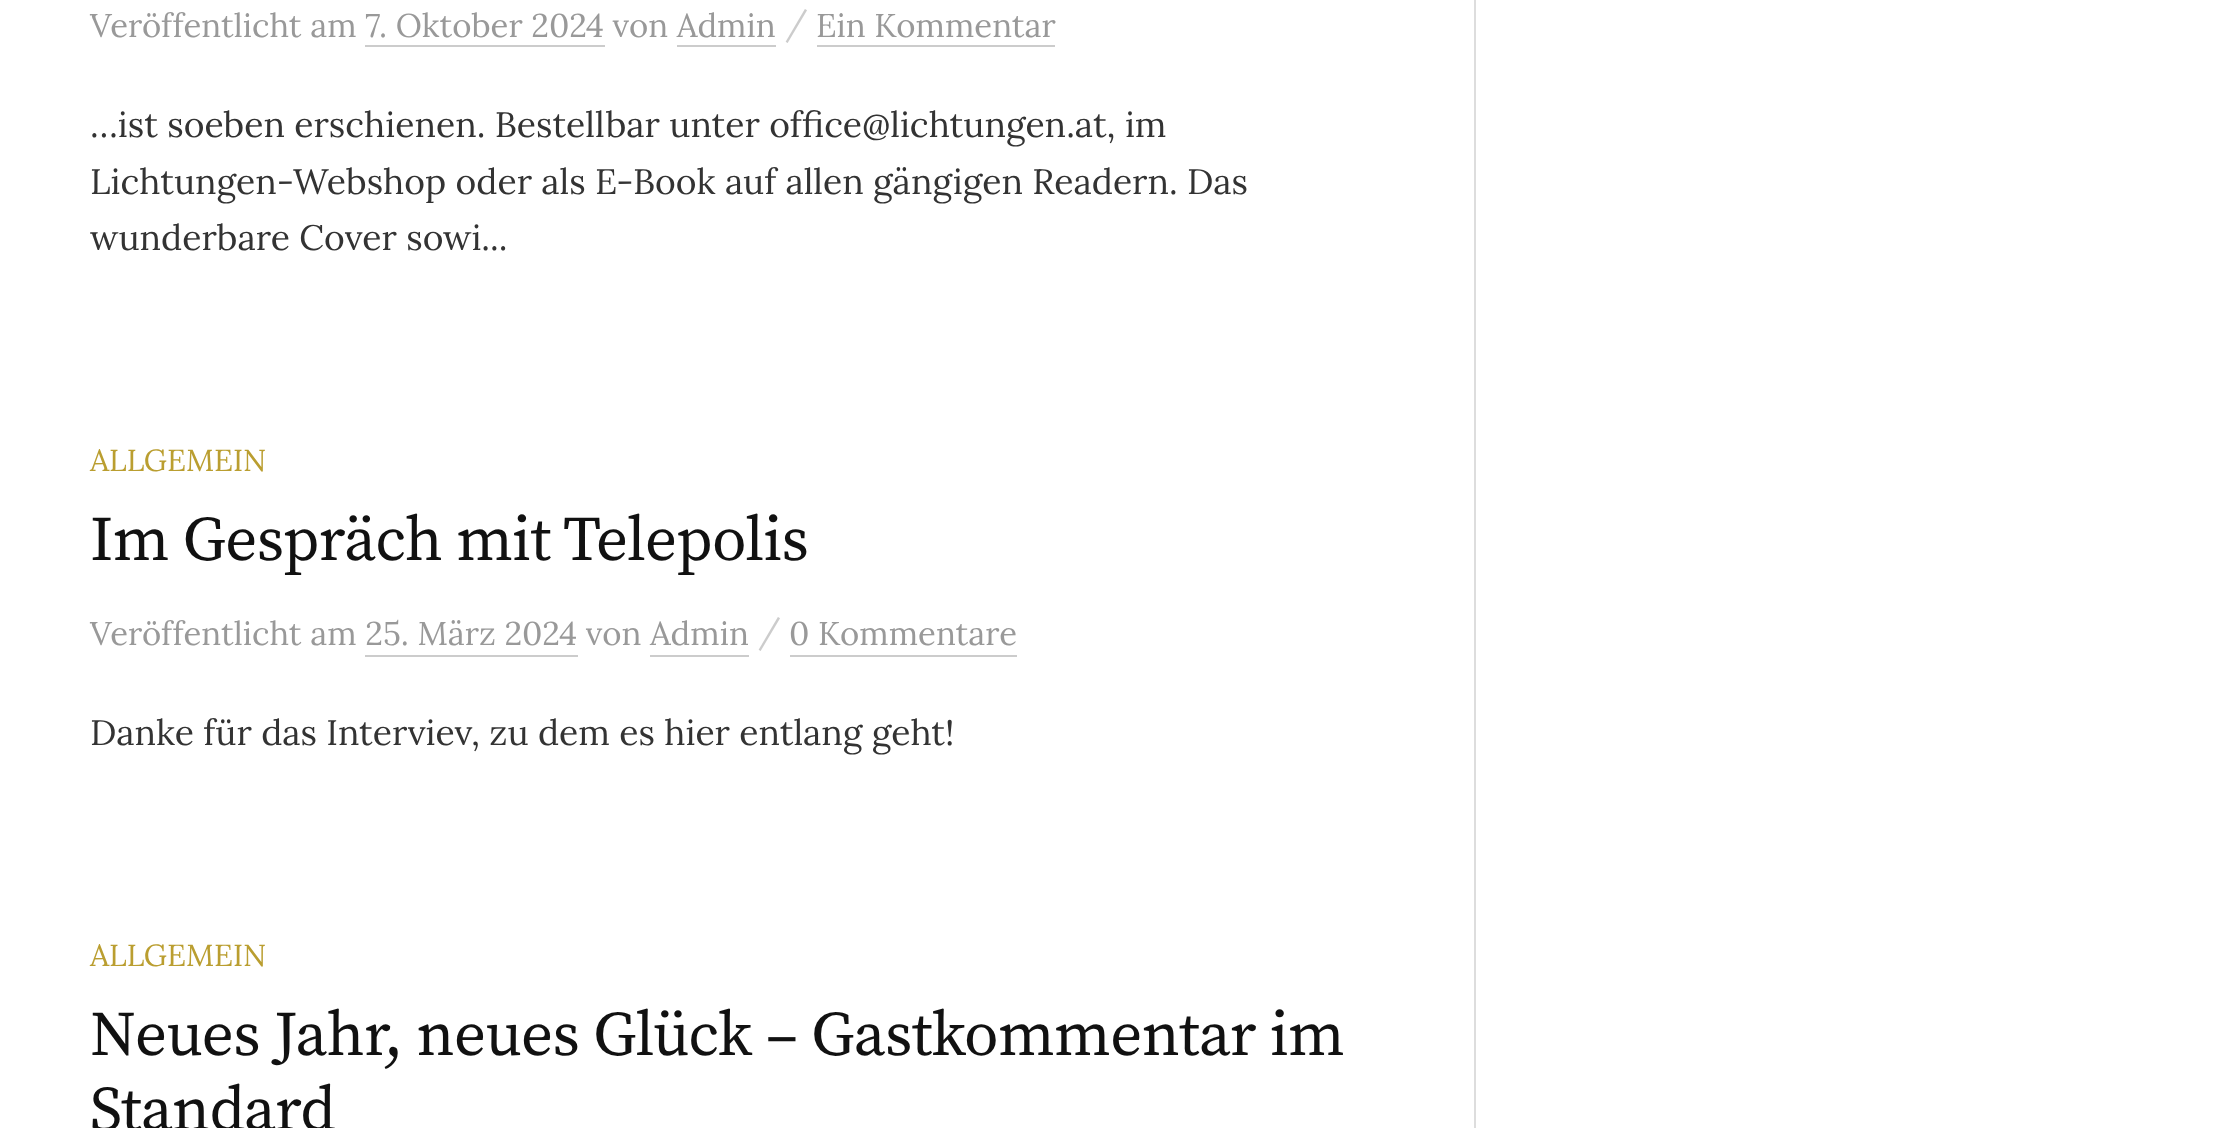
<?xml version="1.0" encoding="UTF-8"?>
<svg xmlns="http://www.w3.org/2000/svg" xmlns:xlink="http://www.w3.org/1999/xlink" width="2218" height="1128">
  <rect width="100%" height="100%" fill="#ffffff" />
  <rect x="1474" width="2" height="1128" fill="#dddddd" />
  <rect x="817" y="45" width="238" height="2" fill="#cccccc" />
  <rect x="365" y="45" width="240" height="2" fill="#cccccc" />
  <rect x="677" y="45" width="99" height="2" fill="#cccccc" />
  <rect x="790" y="655" width="227" height="2" fill="#cccccc" />
  <rect x="365" y="655" width="213" height="2" fill="#cccccc" />
  <rect x="650" y="655" width="99" height="2" fill="#cccccc" />
  <text x="90" y="37" style="font-family: Lora; font-size: 32.9px; fill: #999999">Veröffentlicht am 7. Oktober 2024 von Admin</text>
  <text x="785" y="34" style="font-family: Lora; font-size: 32.9px; fill: #cccccc">/</text>
  <text x="816" y="37" style="font-family: Lora; font-size: 32.9px; fill: #999999">Ein Kommentar</text>
  <text x="90" y="137" style="font-family: Lora; font-size: 35.45px; fill: #333333">…ist soeben erschienen. Bestellbar unter office@lichtungen.at, im</text>
  <text x="90" y="194" style="font-family: Lora; font-size: 35.45px; fill: #333333">Lichtungen-Webshop oder als E-Book auf allen gängigen Readern. Das</text>
  <text x="90" y="250" style="font-family: Lora; font-size: 35.45px; fill: #333333">wunderbare Cover sowi...</text>
  <text x="90" y="471" style="font-family: Lora; font-size: 30.5px; fill: #ba9e30">ALLGEMEIN</text>
  <text x="90" y="560" style="font-family: Source Serif Pro; font-size: 63px; letter-spacing: -0.65px; fill: #111111">Im Gespräch mit Telepolis</text>
  <text x="90" y="645" style="font-family: Lora; font-size: 32.9px; fill: #999999">Veröffentlicht am 25. März 2024 von Admin</text>
  <text x="758" y="642" style="font-family: Lora; font-size: 32.9px; fill: #cccccc">/</text>
  <text x="789" y="645" style="font-family: Lora; font-size: 32.9px; fill: #999999">0 Kommentare</text>
  <text x="90" y="745" style="font-family: Lora; font-size: 35.45px; fill: #333333">Danke für das Interviev, zu dem es hier entlang geht!</text>
  <text x="90" y="966" style="font-family: Lora; font-size: 30.5px; fill: #ba9e30">ALLGEMEIN</text>
  <text x="90" y="1055" style="font-family: Source Serif Pro; font-size: 63px; letter-spacing: -0.65px; fill: #111111">Neues Jahr, neues Glück – Gastkommentar im</text>
  <text x="90" y="1130" style="font-family: Source Serif Pro; font-size: 63px; letter-spacing: -0.65px; fill: #111111">Standard</text>
</svg>
